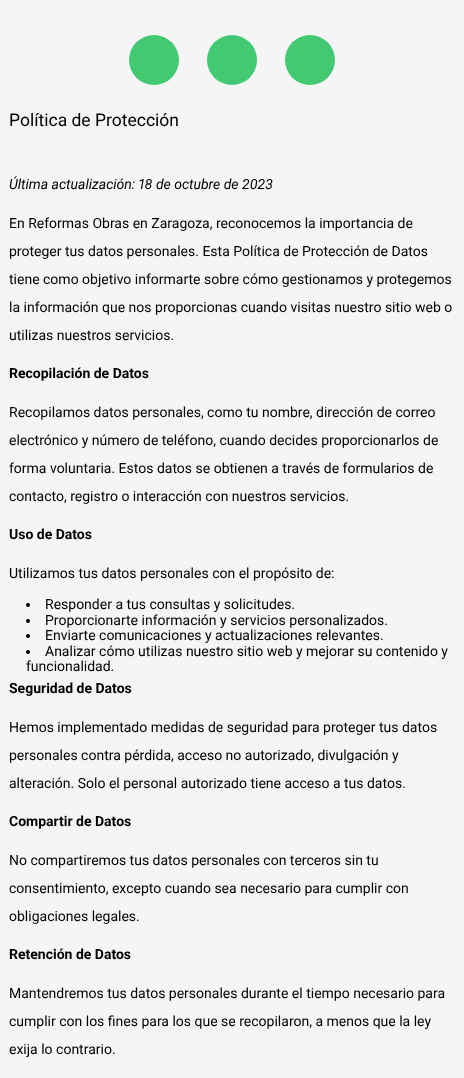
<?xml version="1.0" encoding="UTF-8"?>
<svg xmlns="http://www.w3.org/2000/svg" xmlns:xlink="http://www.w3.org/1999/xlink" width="464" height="1078">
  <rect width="100%" height="100%" fill="#f5f5f5" />
  <circle cx="154" cy="60" r="25" fill="#44c973" />
  <circle cx="232" cy="60" r="25" fill="#44c973" />
  <circle cx="310" cy="60" r="25" fill="#44c973" />
  <circle cx="28" cy="605" r="2" fill="#000000" />
  <circle cx="28" cy="621" r="2" fill="#000000" />
  <circle cx="28" cy="636" r="2" fill="#000000" />
  <circle cx="28" cy="652" r="2" fill="#000000" />
  <text x="9" y="126" style="font-family: Roboto; font-size: 17.5px; fill: #000000">Política de Protección</text>
  <text x="9" y="189" style="font-family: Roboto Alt; font-size: 14px; font-style: italic; fill: #000000">Última actualización: 18 de octubre de 2023</text>
  <text x="9" y="228" style="font-family: Roboto; font-size: 14px; fill: #000000">En Reformas Obras en Zaragoza, reconocemos la importancia de</text>
  <text x="9" y="256" style="font-family: Roboto; font-size: 14px; fill: #000000">proteger tus datos personales. Esta Política de Protección de Datos</text>
  <text x="9" y="284" style="font-family: Roboto; font-size: 14px; fill: #000000">tiene como objetivo informarte sobre cómo gestionamos y protegemos</text>
  <text x="9" y="312" style="font-family: Roboto; font-size: 14px; fill: #000000">la información que nos proporcionas cuando visitas nuestro sitio web o</text>
  <text x="9" y="340" style="font-family: Roboto; font-size: 14px; fill: #000000">utilizas nuestros servicios.</text>
  <text x="9" y="378" style="font-family: Roboto; font-size: 14px; font-weight: bold; fill: #000000">Recopilación de Datos</text>
  <text x="9" y="417" style="font-family: Roboto; font-size: 14px; fill: #000000">Recopilamos datos personales, como tu nombre, dirección de correo</text>
  <text x="9" y="445" style="font-family: Roboto; font-size: 14px; fill: #000000">electrónico y número de teléfono, cuando decides proporcionarlos de</text>
  <text x="9" y="473" style="font-family: Roboto; font-size: 14px; fill: #000000">forma voluntaria. Estos datos se obtienen a través de formularios de</text>
  <text x="9" y="501" style="font-family: Roboto; font-size: 14px; fill: #000000">contacto, registro o interacción con nuestros servicios.</text>
  <text x="9" y="539" style="font-family: Roboto; font-size: 14px; font-weight: bold; fill: #000000">Uso de Datos</text>
  <text x="9" y="578" style="font-family: Roboto; font-size: 14px; fill: #000000">Utilizamos tus datos personales con el propósito de:</text>
  <text x="45" y="609" style="font-family: Roboto; font-size: 14px; fill: #000000">Responder a tus consultas y solicitudes.</text>
  <text x="45" y="625" style="font-family: Roboto; font-size: 14px; fill: #000000">Proporcionarte información y servicios personalizados.</text>
  <text x="45" y="640" style="font-family: Roboto; font-size: 14px; fill: #000000">Enviarte comunicaciones y actualizaciones relevantes.</text>
  <text x="45" y="656" style="font-family: Roboto; font-size: 14px; fill: #000000">Analizar cómo utilizas nuestro sitio web y mejorar su contenido y</text>
  <text x="26" y="671" style="font-family: Roboto; font-size: 14px; fill: #000000">funcionalidad.</text>
  <text x="9" y="693" style="font-family: Roboto; font-size: 14px; font-weight: bold; fill: #000000">Seguridad de Datos</text>
  <text x="9" y="732" style="font-family: Roboto; font-size: 14px; fill: #000000">Hemos implementado medidas de seguridad para proteger tus datos</text>
  <text x="9" y="760" style="font-family: Roboto; font-size: 14px; fill: #000000">personales contra pérdida, acceso no autorizado, divulgación y</text>
  <text x="9" y="788" style="font-family: Roboto; font-size: 14px; fill: #000000">alteración. Solo el personal autorizado tiene acceso a tus datos.</text>
  <text x="9" y="826" style="font-family: Roboto; font-size: 14px; font-weight: bold; fill: #000000">Compartir de Datos</text>
  <text x="9" y="865" style="font-family: Roboto; font-size: 14px; fill: #000000">No compartiremos tus datos personales con terceros sin tu</text>
  <text x="9" y="893" style="font-family: Roboto; font-size: 14px; fill: #000000">consentimiento, excepto cuando sea necesario para cumplir con</text>
  <text x="9" y="921" style="font-family: Roboto; font-size: 14px; fill: #000000">obligaciones legales.</text>
  <text x="9" y="959" style="font-family: Roboto; font-size: 14px; font-weight: bold; fill: #000000">Retención de Datos</text>
  <text x="9" y="998" style="font-family: Roboto; font-size: 14px; fill: #000000">Mantendremos tus datos personales durante el tiempo necesario para</text>
  <text x="9" y="1026" style="font-family: Roboto; font-size: 14px; fill: #000000">cumplir con los fines para los que se recopilaron, a menos que la ley</text>
  <text x="9" y="1054" style="font-family: Roboto; font-size: 14px; fill: #000000">exija lo contrario.</text>
</svg>
